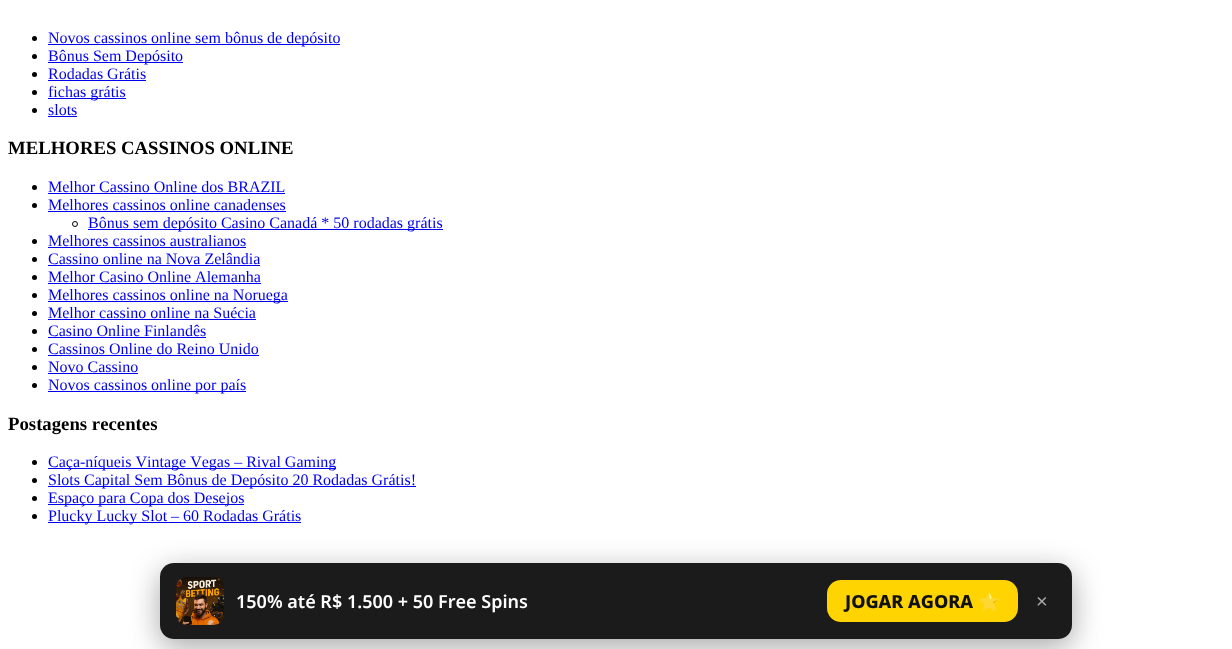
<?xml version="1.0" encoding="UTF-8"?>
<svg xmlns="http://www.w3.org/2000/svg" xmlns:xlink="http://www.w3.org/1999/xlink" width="1232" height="649">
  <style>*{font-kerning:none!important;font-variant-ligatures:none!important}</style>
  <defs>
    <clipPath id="clip1"><path d="M 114 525 h 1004 v 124 h -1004 z m 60 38 h 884 c 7.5 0 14 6.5 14 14 v 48 c 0 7.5 -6.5 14 -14 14 h -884 c -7.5 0 -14 -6.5 -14 -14 v -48 c 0 -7.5 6.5 -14 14 -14 z" clip-rule="evenodd" /></clipPath>
  </defs>
  <rect width="100%" height="100%" fill="#ffffff" />
  <circle cx="34.5" cy="38.5" r="2.5" fill="#000000" />
  <rect x="48" y="44" width="292" height="1" fill="#0000ee" />
  <circle cx="34.5" cy="56.5" r="2.5" fill="#000000" />
  <rect x="48" y="62" width="135" height="1" fill="#0000ee" />
  <circle cx="34.5" cy="74.5" r="2.5" fill="#000000" />
  <rect x="48" y="80" width="98" height="1" fill="#0000ee" />
  <circle cx="34.5" cy="92.5" r="2.5" fill="#000000" />
  <rect x="48" y="98" width="78" height="1" fill="#0000ee" />
  <circle cx="34.5" cy="110.5" r="2.5" fill="#000000" />
  <rect x="48" y="116" width="29" height="1" fill="#0000ee" />
  <circle cx="34.5" cy="187.5" r="2.5" fill="#000000" />
  <rect x="48" y="193" width="237" height="1" fill="#0000ee" />
  <circle cx="34.5" cy="205.5" r="2.5" fill="#000000" />
  <rect x="48" y="211" width="238" height="1" fill="#0000ee" />
  <circle cx="75" cy="224" r="2.5" fill="none" stroke="#000000" />
  <rect x="88" y="229" width="355" height="1" fill="#0000ee" />
  <circle cx="34.5" cy="241.5" r="2.5" fill="#000000" />
  <rect x="48" y="247" width="198" height="1" fill="#0000ee" />
  <circle cx="34.5" cy="259.5" r="2.5" fill="#000000" />
  <rect x="48" y="265" width="212" height="1" fill="#0000ee" />
  <circle cx="34.5" cy="277.5" r="2.5" fill="#000000" />
  <rect x="48" y="283" width="213" height="1" fill="#0000ee" />
  <circle cx="34.5" cy="295.5" r="2.5" fill="#000000" />
  <rect x="48" y="301" width="240" height="1" fill="#0000ee" />
  <circle cx="34.5" cy="313.5" r="2.5" fill="#000000" />
  <rect x="48" y="319" width="208" height="1" fill="#0000ee" />
  <circle cx="34.5" cy="331.5" r="2.5" fill="#000000" />
  <rect x="48" y="337" width="158" height="1" fill="#0000ee" />
  <circle cx="34.5" cy="349.5" r="2.5" fill="#000000" />
  <rect x="48" y="355" width="211" height="1" fill="#0000ee" />
  <circle cx="34.5" cy="367.5" r="2.5" fill="#000000" />
  <rect x="48" y="373" width="90" height="1" fill="#0000ee" />
  <circle cx="34.5" cy="385.5" r="2.5" fill="#000000" />
  <rect x="48" y="391" width="198" height="1" fill="#0000ee" />
  <circle cx="34.5" cy="462.5" r="2.5" fill="#000000" />
  <rect x="48" y="468" width="288" height="1" fill="#0000ee" />
  <circle cx="34.5" cy="480.5" r="2.5" fill="#000000" />
  <rect x="48" y="486" width="368" height="1" fill="#0000ee" />
  <circle cx="34.5" cy="498.5" r="2.5" fill="#000000" />
  <rect x="48" y="504" width="196" height="1" fill="#0000ee" />
  <circle cx="34.5" cy="516.5" r="2.5" fill="#000000" />
  <rect x="48" y="522" width="253" height="1" fill="#0000ee" />
  <g clip-path="url(#clip1)">
    <rect x="160" y="571" width="912" height="76" rx="14" fill="#000000" fill-opacity="0.35" filter="blur(15px)" />
  </g>
  <rect x="160" y="563" width="912" height="76" rx="14" fill="#0f0f0f" fill-opacity="0.95" />
  <image x="176" y="577" width="48" height="48" xlink:href="image1.png" />
  <rect x="827" y="580" width="191" height="42" rx="14" fill="#ffd400" />
  <text x="48" y="43" style="font-family: Liberation Serif; font-size: 16px; fill: #0000ee">Novos cassinos online sem bônus de depósito</text>
  <text x="48" y="61" style="font-family: Liberation Serif; font-size: 16px; fill: #0000ee">Bônus Sem Depósito</text>
  <text x="48" y="79" style="font-family: Liberation Serif; font-size: 16px; fill: #0000ee">Rodadas Grátis</text>
  <text x="48" y="97" style="font-family: Liberation Serif; font-size: 16px; fill: #0000ee">fichas grátis</text>
  <text x="48" y="115" style="font-family: Liberation Serif; font-size: 16px; fill: #0000ee">slots</text>
  <text x="8" y="154" style="font-family: Liberation Serif; font-size: 18.75px; font-weight: bold; fill: #000000">MELHORES CASSINOS ONLINE</text>
  <text x="48" y="192" style="font-family: Liberation Serif; font-size: 16px; fill: #0000ee">Melhor Cassino Online dos BRAZIL</text>
  <text x="48" y="210" style="font-family: Liberation Serif; font-size: 16px; fill: #0000ee">Melhores cassinos online canadenses</text>
  <text x="88" y="228" style="font-family: Liberation Serif; font-size: 16px; fill: #0000ee">Bônus sem depósito Casino Canadá * 50 rodadas grátis</text>
  <text x="48" y="246" style="font-family: Liberation Serif; font-size: 16px; fill: #0000ee">Melhores cassinos australianos</text>
  <text x="48" y="264" style="font-family: Liberation Serif; font-size: 16px; fill: #0000ee">Cassino online na Nova Zelândia</text>
  <text x="48" y="282" style="font-family: Liberation Serif; font-size: 16px; fill: #0000ee">Melhor Casino Online Alemanha</text>
  <text x="48" y="300" style="font-family: Liberation Serif; font-size: 16px; fill: #0000ee">Melhores cassinos online na Noruega</text>
  <text x="48" y="318" style="font-family: Liberation Serif; font-size: 16px; fill: #0000ee">Melhor cassino online na Suécia</text>
  <text x="48" y="336" style="font-family: Liberation Serif; font-size: 16px; fill: #0000ee">Casino Online Finlandês</text>
  <text x="48" y="354" style="font-family: Liberation Serif; font-size: 16px; fill: #0000ee">Cassinos Online do Reino Unido</text>
  <text x="48" y="372" style="font-family: Liberation Serif; font-size: 16px; fill: #0000ee">Novo Cassino</text>
  <text x="48" y="390" style="font-family: Liberation Serif; font-size: 16px; fill: #0000ee">Novos cassinos online por país</text>
  <text x="8" y="430" style="font-family: Liberation Serif; font-size: 18.75px; font-weight: bold; fill: #000000">Postagens recentes</text>
  <text x="48" y="467" style="font-family: Liberation Serif; font-size: 16px; fill: #0000ee">Caça-níqueis Vintage Vegas – Rival Gaming</text>
  <text x="48" y="485" style="font-family: Liberation Serif; font-size: 16px; fill: #0000ee">Slots Capital Sem Bônus de Depósito 20 Rodadas Grátis!</text>
  <text x="48" y="503" style="font-family: Liberation Serif; font-size: 16px; fill: #0000ee">Espaço para Copa dos Desejos</text>
  <text x="48" y="521" style="font-family: Liberation Serif; font-size: 16px; fill: #0000ee">Plucky Lucky Slot – 60 Rodadas Grátis</text>
  <text x="236" y="608" style="font-family: Noto Sans; font-size: 18px; font-weight: 600; fill: #ffffff">150% até R$ 1.500 + 50 Free Spins</text>
  <text x="845" y="608" style="font-family: Noto Sans; font-size: 18px; font-weight: 800; fill: #111111">JOGAR AGORA</text>
  <text x="978" y="608" style="font-family: Noto Color Emoji; font-size: 18px; font-weight: bold; fill: #111111">⭐</text>
  <text x="1036" y="608" style="font-family: Liberation Sans; font-size: 20px; fill: #aaaaaa">×</text>
</svg>
